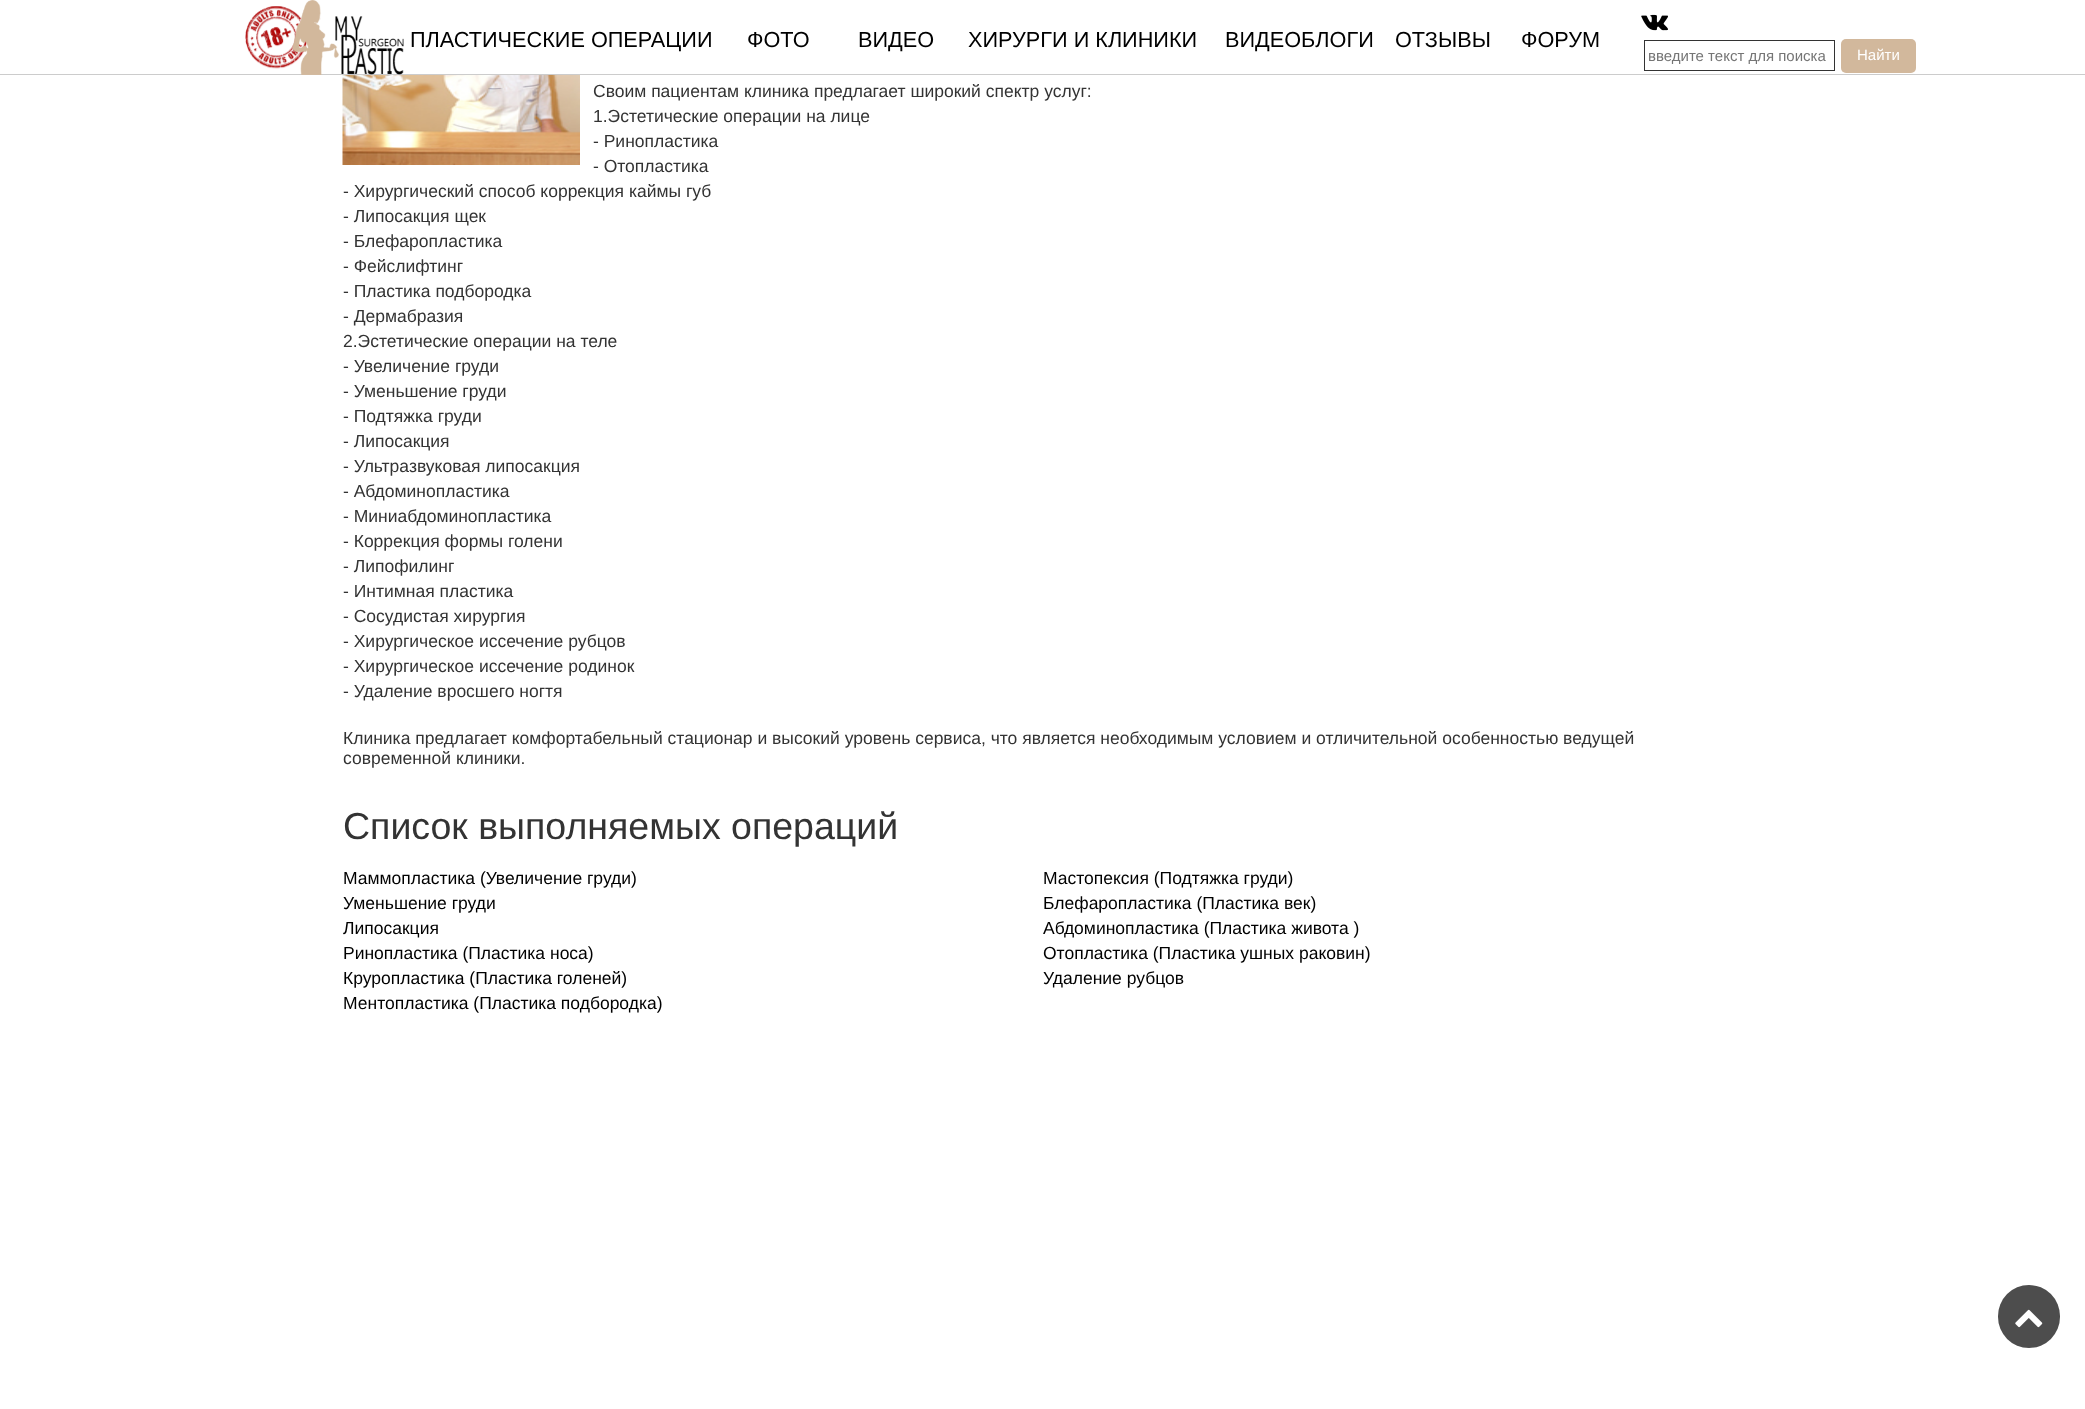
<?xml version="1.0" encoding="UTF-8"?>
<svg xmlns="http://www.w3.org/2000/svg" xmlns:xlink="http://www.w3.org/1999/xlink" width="2085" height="1409">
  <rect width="100%" height="100%" fill="#ffffff" />
  <rect y="74" width="2085" height="1" fill="#cccccc" />
  <image x="245" y="6" width="63" height="63" xlink:href="image1.png" />
  <image x="292" y="0" width="112" height="75" xlink:href="image2.png" />
  <image x="1641" y="14" width="27" height="17" xlink:href="image3.png" />
  <rect x="1644.5" y="40.5" width="190" height="30" fill="none" stroke="#333333" />
  <rect x="1841" y="39" width="75" height="34" rx="5" fill="#d2b89c" />
  <image x="342" y="75" width="238" height="90" xlink:href="image4.png" />
  <rect x="1998" y="1285" width="62" height="63" rx="31" fill="#4d4d4d" />
  <image x="2015" y="1309" width="28" height="19" xlink:href="image5.png" />
  <text x="410" y="47" style="font-family: Liberation Sans; font-size: 21.7px; fill: #000000">ПЛАСТИЧЕСКИЕ ОПЕРАЦИИ</text>
  <text x="747" y="47" style="font-family: Liberation Sans; font-size: 21.7px; fill: #000000">ФОТО</text>
  <text x="858" y="47" style="font-family: Liberation Sans; font-size: 21.7px; fill: #000000">ВИДЕО</text>
  <text x="968" y="47" style="font-family: Liberation Sans; font-size: 21.7px; fill: #000000">ХИРУРГИ И КЛИНИКИ</text>
  <text x="1225" y="47" style="font-family: Liberation Sans; font-size: 21.7px; fill: #000000">ВИДЕОБЛОГИ</text>
  <text x="1395" y="47" style="font-family: Liberation Sans; font-size: 21.7px; fill: #000000">ОТЗЫВЫ</text>
  <text x="1521" y="47" style="font-family: Liberation Sans; font-size: 21.7px; fill: #000000">ФОРУМ</text>
  <text x="1648" y="61" style="font-family: Liberation Sans; font-size: 15px; fill: #757575">введите текст для поиска</text>
  <text x="1857" y="60" style="font-family: Liberation Sans; font-size: 15px; fill: #ffffff">Найти</text>
  <text x="593" y="97" style="font-family: Liberation Sans; font-size: 17.5px; fill: #333333">Своим пациентам клиника предлагает широкий спектр услуг:</text>
  <text x="593" y="122" style="font-family: Liberation Sans; font-size: 17.5px; fill: #333333">1.Эстетические операции на лице</text>
  <text x="593" y="147" style="font-family: Liberation Sans; font-size: 17.5px; fill: #333333">- Ринопластика</text>
  <text x="593" y="172" style="font-family: Liberation Sans; font-size: 17.5px; fill: #333333">- Отопластика</text>
  <text x="343" y="197" style="font-family: Liberation Sans; font-size: 17.5px; fill: #333333">- Хирургический способ коррекция каймы губ</text>
  <text x="343" y="222" style="font-family: Liberation Sans; font-size: 17.5px; fill: #333333">- Липосакция щек</text>
  <text x="343" y="247" style="font-family: Liberation Sans; font-size: 17.5px; fill: #333333">- Блефаропластика</text>
  <text x="343" y="272" style="font-family: Liberation Sans; font-size: 17.5px; fill: #333333">- Фейслифтинг</text>
  <text x="343" y="297" style="font-family: Liberation Sans; font-size: 17.5px; fill: #333333">- Пластика подбородка</text>
  <text x="343" y="322" style="font-family: Liberation Sans; font-size: 17.5px; fill: #333333">- Дермабразия</text>
  <text x="343" y="347" style="font-family: Liberation Sans; font-size: 17.5px; fill: #333333">2.Эстетические операции на теле</text>
  <text x="343" y="372" style="font-family: Liberation Sans; font-size: 17.5px; fill: #333333">- Увеличение груди</text>
  <text x="343" y="397" style="font-family: Liberation Sans; font-size: 17.5px; fill: #333333">- Уменьшение груди</text>
  <text x="343" y="422" style="font-family: Liberation Sans; font-size: 17.5px; fill: #333333">- Подтяжка груди</text>
  <text x="343" y="447" style="font-family: Liberation Sans; font-size: 17.5px; fill: #333333">- Липосакция</text>
  <text x="343" y="472" style="font-family: Liberation Sans; font-size: 17.5px; fill: #333333">- Ультразвуковая липосакция</text>
  <text x="343" y="497" style="font-family: Liberation Sans; font-size: 17.5px; fill: #333333">- Абдоминопластика</text>
  <text x="343" y="522" style="font-family: Liberation Sans; font-size: 17.5px; fill: #333333">- Миниабдоминопластика</text>
  <text x="343" y="547" style="font-family: Liberation Sans; font-size: 17.5px; fill: #333333">- Коррекция формы голени</text>
  <text x="343" y="572" style="font-family: Liberation Sans; font-size: 17.5px; fill: #333333">- Липофилинг</text>
  <text x="343" y="597" style="font-family: Liberation Sans; font-size: 17.5px; fill: #333333">- Интимная пластика</text>
  <text x="343" y="622" style="font-family: Liberation Sans; font-size: 17.5px; fill: #333333">- Сосудистая хирургия</text>
  <text x="343" y="647" style="font-family: Liberation Sans; font-size: 17.5px; fill: #333333">- Хирургическое иссечение рубцов</text>
  <text x="343" y="672" style="font-family: Liberation Sans; font-size: 17.5px; fill: #333333">- Хирургическое иссечение родинок</text>
  <text x="343" y="697" style="font-family: Liberation Sans; font-size: 17.5px; fill: #333333">- Удаление вросшего ногтя</text>
  <text x="343" y="744" style="font-family: Liberation Sans; font-size: 17.5px; fill: #333333">Клиника предлагает комфортабельный стационар и высокий уровень сервиса, что является необходимым условием и отличительной особенностью ведущей</text>
  <text x="343" y="764" style="font-family: Liberation Sans; font-size: 17.5px; fill: #333333">современной клиники.</text>
  <text x="343" y="839" style="font-family: Liberation Sans; font-size: 37.5px; fill: #333333">Список выполняемых операций</text>
  <text x="343" y="884" style="font-family: Liberation Sans; font-size: 17.5px; fill: #000000">Маммопластика (Увеличение груди)</text>
  <text x="1043" y="884" style="font-family: Liberation Sans; font-size: 17.5px; fill: #000000">Мастопексия (Подтяжка груди)</text>
  <text x="343" y="909" style="font-family: Liberation Sans; font-size: 17.5px; fill: #000000">Уменьшение груди</text>
  <text x="1043" y="909" style="font-family: Liberation Sans; font-size: 17.5px; fill: #000000">Блефаропластика (Пластика век)</text>
  <text x="343" y="934" style="font-family: Liberation Sans; font-size: 17.5px; fill: #000000">Липосакция</text>
  <text x="1043" y="934" style="font-family: Liberation Sans; font-size: 17.5px; fill: #000000">Абдоминопластика (Пластика живота )</text>
  <text x="343" y="959" style="font-family: Liberation Sans; font-size: 17.5px; fill: #000000">Ринопластика (Пластика носа)</text>
  <text x="1043" y="959" style="font-family: Liberation Sans; font-size: 17.5px; fill: #000000">Отопластика (Пластика ушных раковин)</text>
  <text x="343" y="984" style="font-family: Liberation Sans; font-size: 17.5px; fill: #000000">Круропластика (Пластика голеней)</text>
  <text x="1043" y="984" style="font-family: Liberation Sans; font-size: 17.5px; fill: #000000">Удаление рубцов</text>
  <text x="343" y="1009" style="font-family: Liberation Sans; font-size: 17.5px; fill: #000000">Ментопластика (Пластика подбородка)</text>
</svg>
